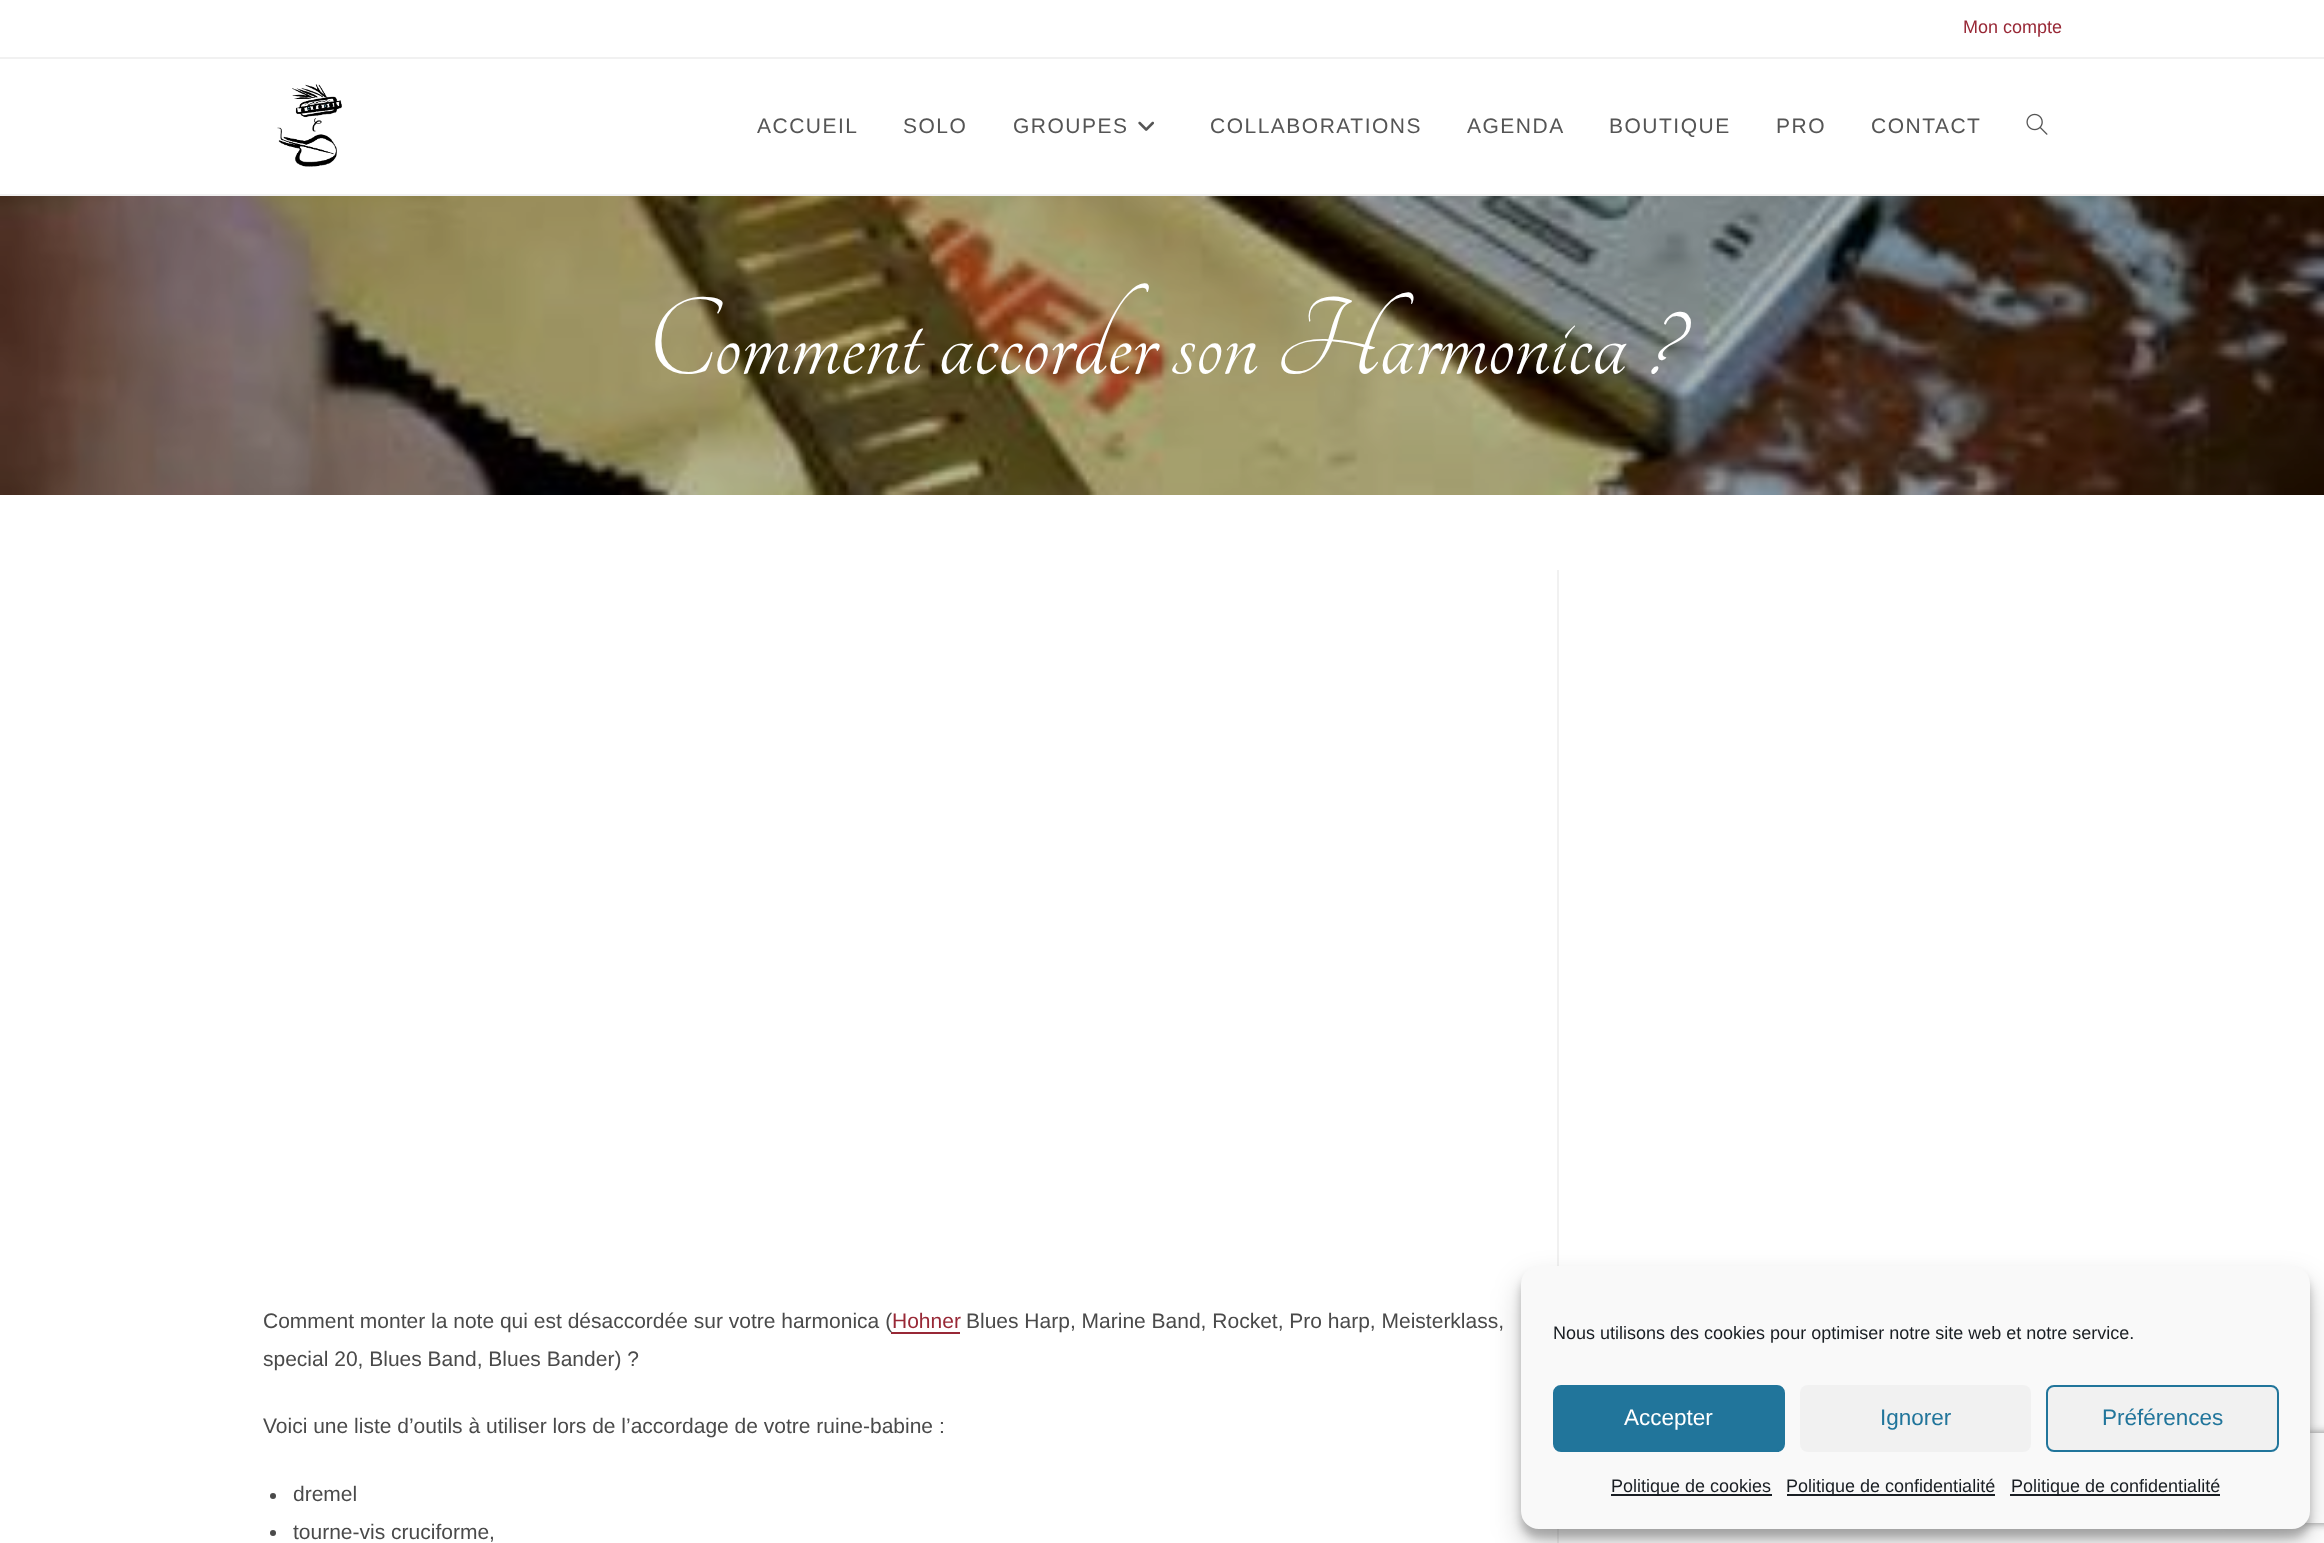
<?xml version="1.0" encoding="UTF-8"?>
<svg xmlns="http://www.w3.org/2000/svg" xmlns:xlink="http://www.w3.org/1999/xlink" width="2324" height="1543">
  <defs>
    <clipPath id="clip1"><path d="M 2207 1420 h 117 v 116 h -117 z m 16 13 h 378 c 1.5 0 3 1.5 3 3 v 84 c 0 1.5 -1.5 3 -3 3 h -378 c -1.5 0 -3 -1.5 -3 -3 v -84 c 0 -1.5 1.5 -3 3 -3 z" clip-rule="evenodd" /></clipPath>
  </defs>
  <rect width="100%" height="100%" fill="#ffffff" />
  <rect y="57" width="2324" height="2" fill="#f1f1f1" />
  <rect y="194" width="2324" height="2" fill="#f1f1f1" />
  <image x="277" y="84" width="65" height="83" xlink:href="image1.png" />
  <image x="1138" y="121" width="16" height="10" xlink:href="image2.png" />
  <image x="2026" y="113" width="22" height="22" xlink:href="image3.png" />
  <image x="0" y="196" width="2324" height="299" xlink:href="image4.png" />
  <rect x="1557" y="570" width="2" height="973" fill="#f1f1f1" />
  <circle cx="273" cy="1496" r="3" fill="#4a4a4a" />
  <circle cx="273" cy="1533" r="3" fill="#4a4a4a" />
  <rect x="1521" y="1275" width="789" height="263" rx="18" fill="#000000" fill-opacity="0.23" filter="blur(4.5px)" />
  <rect x="1521" y="1281" width="789" height="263" rx="18" fill="#000000" fill-opacity="0.19" filter="blur(15px)" />
  <g clip-path="url(#clip1)">
    <rect x="2220" y="1433" width="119" height="90" rx="3" fill="#808080" filter="blur(4px)" />
  </g>
  <rect x="1522" y="1267" width="787" height="261" rx="17" fill="#f9f9f9" stroke="#f9f9f9" stroke-width="2" />
  <rect x="1554" y="1386" width="230" height="65" rx="7" fill="#21759b" stroke="#21759b" stroke-width="2" />
  <rect x="1800" y="1385" width="231" height="67" rx="8" fill="#f1f1f1" />
  <rect x="2047" y="1386" width="231" height="65" rx="7" fill="#f1f1f1" stroke="#21759b" stroke-width="2" />
  <rect x="1611" y="1494" width="161" height="2" fill="#191e23" />
  <rect x="1787" y="1494" width="208" height="2" fill="#191e23" />
  <rect x="2010" y="1494" width="210" height="2" fill="#191e23" />
  <text x="1963" y="33" style="font-family: Liberation Sans; font-size: 18px; fill: #982836">Mon compte</text>
  <text x="757" y="133" style="font-family: Liberation Sans; font-size: 21px; letter-spacing: 1.5px; fill: #555555">ACCUEIL</text>
  <text x="903" y="133" style="font-family: Liberation Sans; font-size: 21px; letter-spacing: 1.5px; fill: #555555">SOLO</text>
  <text x="1013" y="133" style="font-family: Liberation Sans; font-size: 21px; letter-spacing: 1.5px; fill: #555555">GROUPES</text>
  <text x="1210" y="133" style="font-family: Liberation Sans; font-size: 21px; letter-spacing: 1.5px; fill: #555555">COLLABORATIONS</text>
  <text x="1467" y="133" style="font-family: Liberation Sans; font-size: 21px; letter-spacing: 1.5px; fill: #555555">AGENDA</text>
  <text x="1609" y="133" style="font-family: Liberation Sans; font-size: 21px; letter-spacing: 1.5px; fill: #555555">BOUTIQUE</text>
  <text x="1776" y="133" style="font-family: Liberation Sans; font-size: 21px; letter-spacing: 1.5px; fill: #555555">PRO</text>
  <text x="1871" y="133" style="font-family: Liberation Sans; font-size: 21px; letter-spacing: 1.5px; fill: #555555">CONTACT</text>
  <text x="647" y="374" style="font-family: Tangerine; font-size: 120px; fill: #ffffff">Comment accorder son Harmonica ?</text>
  <text x="263" y="1328" style="font-family: Liberation Sans; font-size: 21px; fill: #4a4a4a">Comment monter la note qui est désaccordée sur votre harmonica (</text>
  <text x="892" y="1328" style="font-family: Liberation Sans; font-size: 21px; fill: #982836">Hohner</text>
  <rect x="891" y="1332" width="69" height="2" fill="#982836" />
  <text x="966" y="1328" style="font-family: Liberation Sans; font-size: 21px; fill: #4a4a4a">Blues Harp, Marine Band, Rocket, Pro harp, Meisterklass,</text>
  <text x="263" y="1366" style="font-family: Liberation Sans; font-size: 21px; fill: #4a4a4a">special 20, Blues Band, Blues Bander) ?</text>
  <text x="263" y="1433" style="font-family: Liberation Sans; font-size: 21px; fill: #4a4a4a">Voici une liste d’outils à utiliser lors de l’accordage de votre ruine-babine :</text>
  <text x="293" y="1501" style="font-family: Liberation Sans; font-size: 21px; fill: #4a4a4a">dremel</text>
  <text x="293" y="1539" style="font-family: Liberation Sans; font-size: 21px; fill: #4a4a4a">tourne-vis cruciforme,</text>
  <text x="1553" y="1339" style="font-family: Liberation Sans; font-size: 18px; fill: #191e23">Nous utilisons des cookies pour optimiser notre site web et notre service.</text>
  <text x="1624" y="1425" style="font-family: Liberation Sans; font-size: 22.5px; fill: #ffffff">Accepter</text>
  <text x="1880" y="1425" style="font-family: Liberation Sans; font-size: 22.5px; fill: #21759b">Ignorer</text>
  <text x="2102" y="1425" style="font-family: Liberation Sans; font-size: 22.5px; fill: #21759b">Préférences</text>
  <text x="1611" y="1492" style="font-family: Liberation Sans; font-size: 18px; fill: #191e23">Politique de cookies</text>
  <text x="1786" y="1492" style="font-family: Liberation Sans; font-size: 18px; fill: #191e23">Politique de confidentialité</text>
  <text x="2011" y="1492" style="font-family: Liberation Sans; font-size: 18px; fill: #191e23">Politique de confidentialité</text>
</svg>
